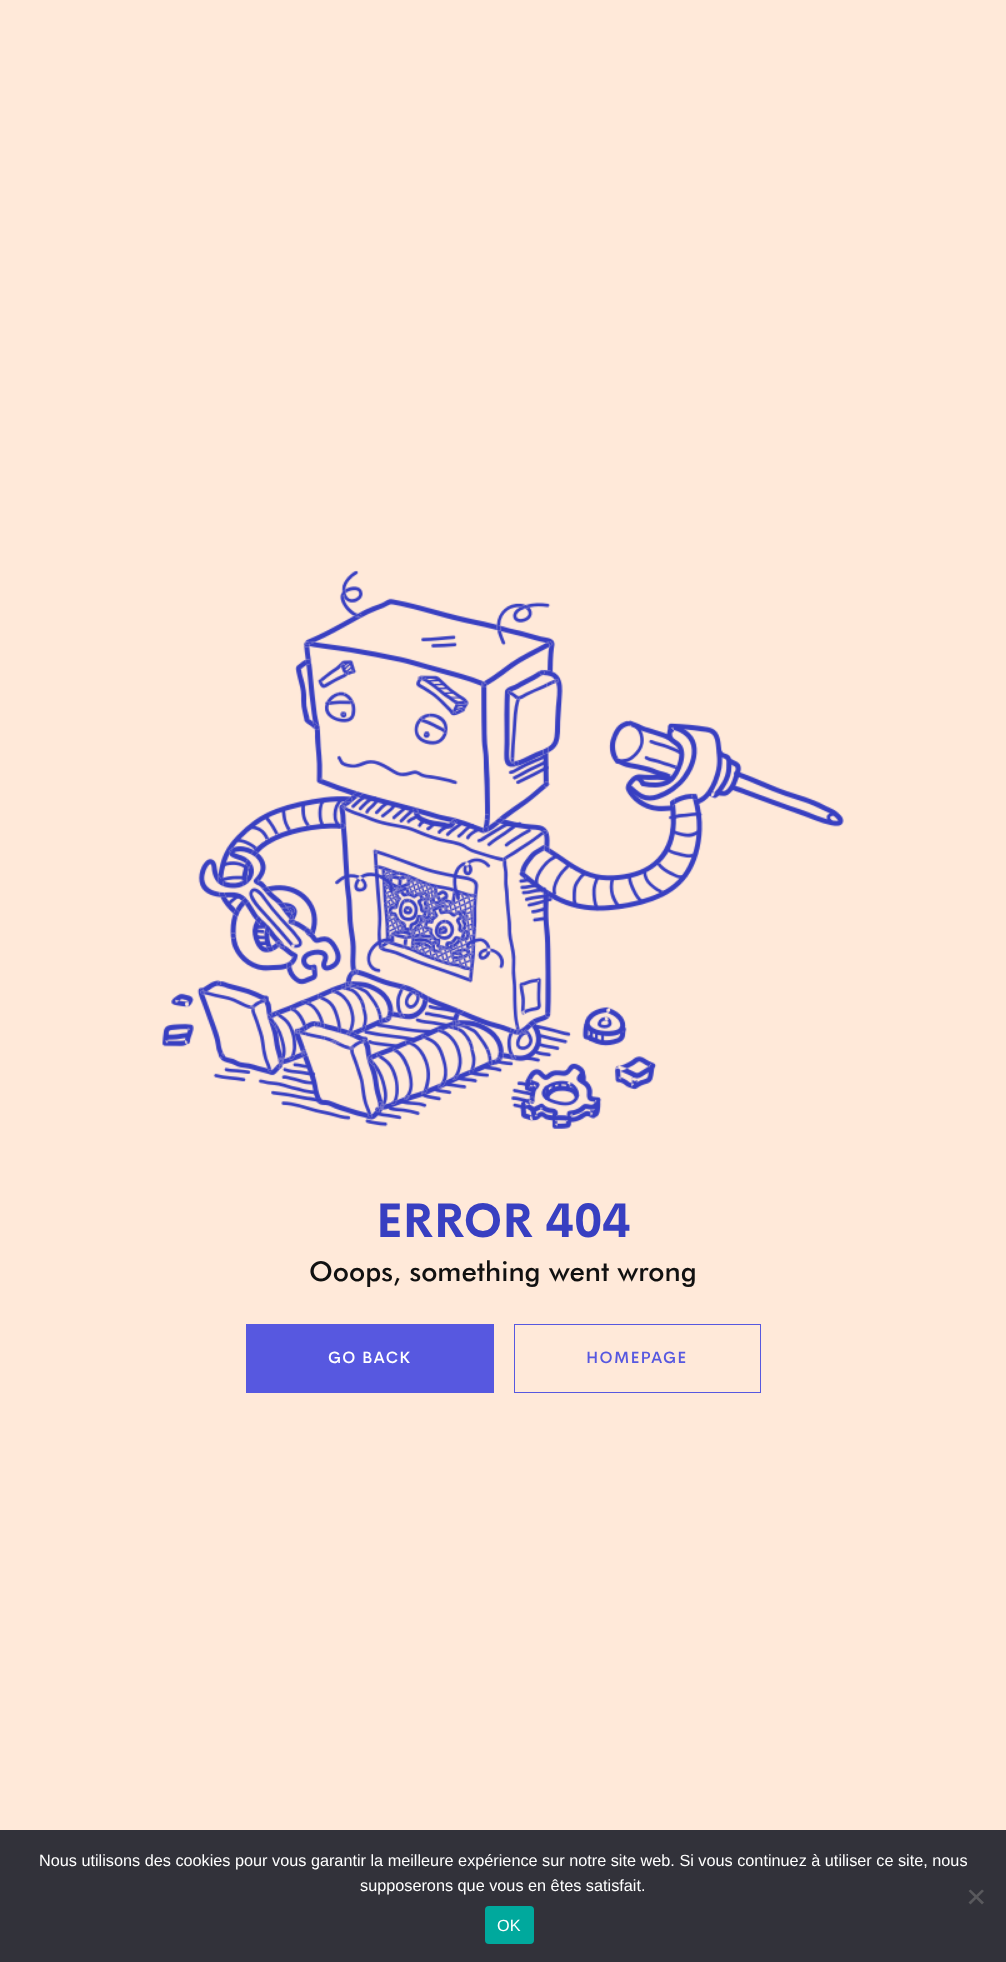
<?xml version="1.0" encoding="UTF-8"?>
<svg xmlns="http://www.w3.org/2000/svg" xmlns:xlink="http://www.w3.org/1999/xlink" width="1006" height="1962">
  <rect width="100%" height="100%" fill="#ffe9d9" />
  <image x="162" y="570" width="682" height="559" xlink:href="image1.png" />
  <rect x="246" y="1324" width="248" height="69" fill="#5758e0" />
  <rect x="514.5" y="1324.5" width="246" height="68" fill="none" stroke="#5758e0" />
  <rect y="1830" width="1006" height="132" fill="#32323a" />
  <path d="M 982 1889.5 l 2 1.5 l -13.5 13.5 l -2 -2 z" fill="#59595d" />
  <path d="M 968.5 1891 l 2 -1.5 l 13.5 13 l -2 2 z" fill="#59595d" />
  <rect x="485" y="1906" width="49" height="38" rx="4" fill="#00a99d" />
  <text x="376" y="1237" style="font-family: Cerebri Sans; font-size: 47.5px; font-weight: bold; fill: #383fc1">ERROR 404</text>
  <text x="309" y="1281" style="font-family: Futura; font-size: 27.5px; font-weight: 500; fill: #111111">Ooops, something went wrong</text>
  <text x="328" y="1363" style="font-family: Cerebri Sans; font-size: 16.25px; font-weight: 500; letter-spacing: 1.25px; fill: #ffffff">GO BACK</text>
  <text x="586" y="1363" style="font-family: Cerebri Sans; font-size: 16.25px; font-weight: 500; letter-spacing: 1.25px; fill: #5758e0">HOMEPAGE</text>
  <text x="39" y="1866" style="font-family: Liberation Sans; font-size: 16.25px; fill: #ffffff">Nous utilisons des cookies pour vous garantir la meilleure expérience sur notre site web. Si vous continuez à utiliser ce site, nous</text>
  <text x="360" y="1891" style="font-family: Liberation Sans; font-size: 16.25px; fill: #ffffff">supposerons que vous en êtes satisfait.</text>
  <text x="497" y="1931" style="font-family: Liberation Sans; font-size: 16.25px; fill: #ffffff">OK</text>
</svg>
